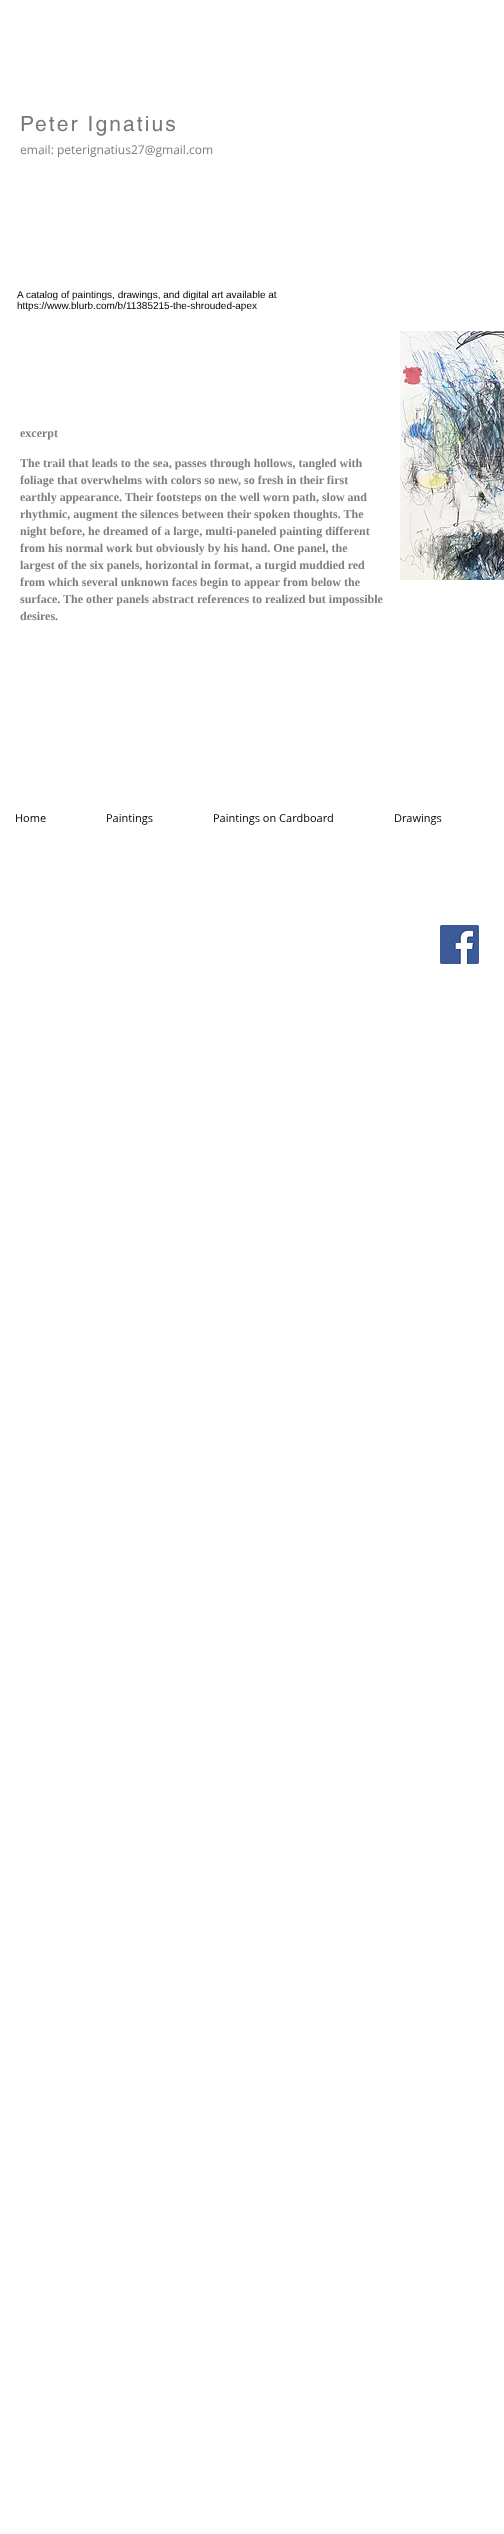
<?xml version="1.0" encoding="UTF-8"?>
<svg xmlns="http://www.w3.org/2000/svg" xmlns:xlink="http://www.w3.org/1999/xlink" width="504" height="2534">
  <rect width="100%" height="100%" fill="#ffffff" />
  <image x="400" y="331" width="104" height="249" xlink:href="image1.png" />
  <image x="440" y="925" width="39" height="39" xlink:href="image2.png" />
  <text x="20" y="131" style="font-family: helvetica; font-size: 21px; letter-spacing: 2.1px; fill: #7c7676">Peter Ignatius</text>
  <text x="20" y="154" style="font-family: Open Sans; font-size: 12px; fill: #7f7e7e">email: peterignatius27@gmail.com</text>
  <text x="17" y="298" style="font-family: Liberation Sans; font-size: 10px; fill: #000000">A catalog of paintings, drawings, and digital art available at</text>
  <text x="17" y="309" style="font-family: Liberation Sans; font-size: 10px; fill: #000000">https://www.blurb.com/b/11385215-the-shrouded-apex</text>
  <text x="20" y="437" style="font-family: Liberation Serif; font-size: 12px; font-weight: bold; fill: #7f7e7e">excerpt</text>
  <text x="20" y="467" style="font-family: Liberation Serif; font-size: 12px; font-weight: bold; fill: #7f7e7e">The trail that leads to the sea, passes through hollows, tangled with</text>
  <text x="20" y="484" style="font-family: Liberation Serif; font-size: 12px; font-weight: bold; fill: #7f7e7e">foliage that overwhelms with colors so new, so fresh in their first</text>
  <text x="20" y="501" style="font-family: Liberation Serif; font-size: 12px; font-weight: bold; fill: #7f7e7e">earthly appearance. Their footsteps on the well worn path, slow and</text>
  <text x="20" y="518" style="font-family: Liberation Serif; font-size: 12px; font-weight: bold; fill: #7f7e7e">rhythmic, augment the silences between their spoken thoughts. The</text>
  <text x="20" y="535" style="font-family: Liberation Serif; font-size: 12px; font-weight: bold; fill: #7f7e7e">night before, he dreamed of a large, multi-paneled painting different</text>
  <text x="20" y="552" style="font-family: Liberation Serif; font-size: 12px; font-weight: bold; fill: #7f7e7e">from his normal work but obviously by his hand. One panel, the</text>
  <text x="20" y="569" style="font-family: Liberation Serif; font-size: 12px; font-weight: bold; fill: #7f7e7e">largest of the six panels, horizontal in format, a turgid muddied red</text>
  <text x="20" y="586" style="font-family: Liberation Serif; font-size: 12px; font-weight: bold; fill: #7f7e7e">from which several unknown faces begin to appear from below the</text>
  <text x="20" y="603" style="font-family: Liberation Serif; font-size: 12px; font-weight: bold; fill: #7f7e7e">surface. The other panels abstract references to realized but impossible</text>
  <text x="20" y="620" style="font-family: Liberation Serif; font-size: 12px; font-weight: bold; fill: #7f7e7e">desires.</text>
  <text x="15" y="822" style="font-family: Open Sans; font-size: 11px; fill: #000000">Home</text>
  <text x="106" y="822" style="font-family: Open Sans; font-size: 11px; fill: #000000">Paintings</text>
  <text x="213" y="822" style="font-family: Open Sans; font-size: 11px; fill: #000000">Paintings on Cardboard</text>
  <text x="394" y="822" style="font-family: Open Sans; font-size: 11px; fill: #000000">Drawings</text>
</svg>
